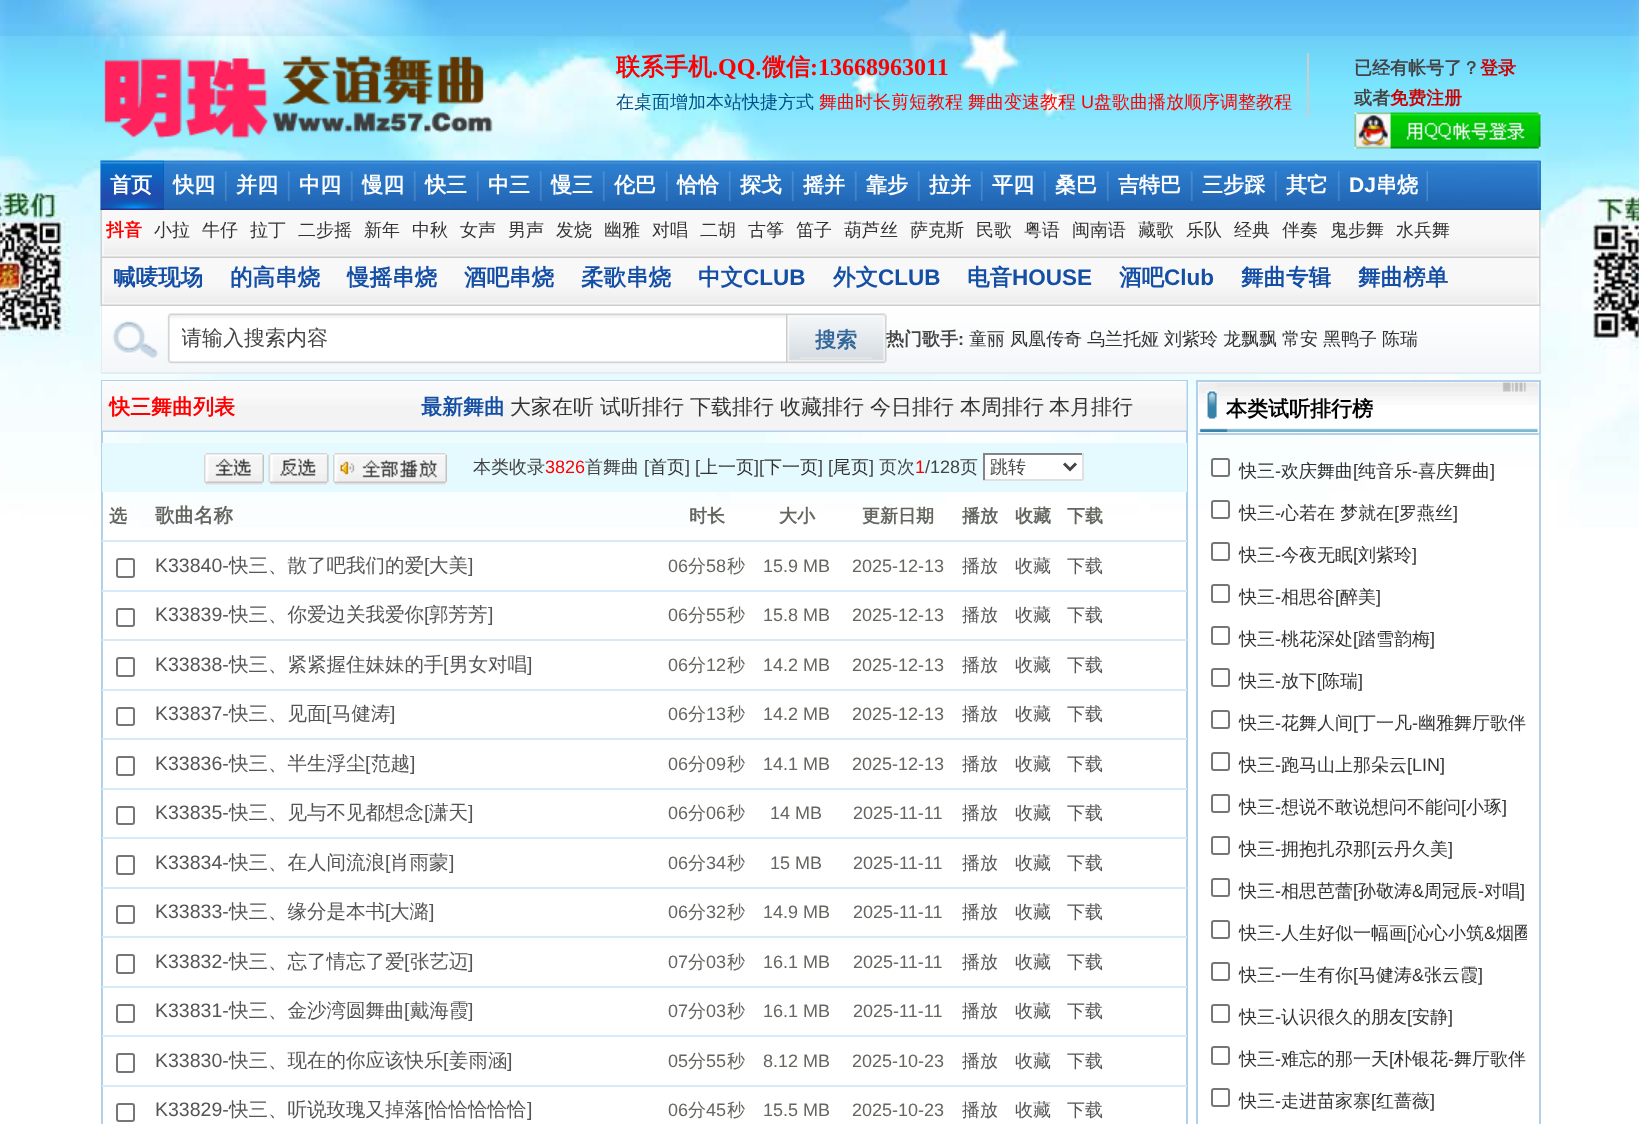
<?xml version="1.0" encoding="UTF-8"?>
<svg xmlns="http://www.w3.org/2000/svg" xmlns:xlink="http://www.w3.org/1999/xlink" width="1639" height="1124">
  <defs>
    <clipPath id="clip1"><rect x="182" y="323" width="600" height="31" /></clipPath>
    <clipPath id="clip2"><rect x="1205" y="912" width="322" height="42" /></clipPath>
  </defs>
  <rect width="100%" height="100%" fill="#ffffff" />
  <image x="0" y="0" width="1639" height="527" xlink:href="image1.png" />
  <image x="104" y="55" width="389" height="84" xlink:href="image2.png" />
  <rect x="1307" y="53" width="2" height="64" fill="#cdcdcd" />
  <image x="1354" y="112" width="187" height="37" xlink:href="image3.png" />
  <rect x="1540" y="161" width="1" height="49" fill="#2b7acd" />
  <image x="100" y="160" width="1441" height="50" xlink:href="image4.png" />
  <rect x="163" y="161" width="1" height="49" fill="#005ab4" />
  <image x="100" y="160" width="64" height="50" xlink:href="image5.png" />
  <image x="224" y="171" width="3" height="31" xlink:href="image6.png" />
  <image x="287" y="171" width="3" height="31" xlink:href="image7.png" />
  <image x="350" y="171" width="3" height="31" xlink:href="image8.png" />
  <image x="413" y="171" width="3" height="31" xlink:href="image9.png" />
  <image x="476" y="171" width="3" height="31" xlink:href="image10.png" />
  <image x="539" y="171" width="3" height="31" xlink:href="image11.png" />
  <image x="602" y="171" width="3" height="31" xlink:href="image12.png" />
  <image x="665" y="171" width="3" height="31" xlink:href="image9.png" />
  <image x="728" y="171" width="3" height="31" xlink:href="image13.png" />
  <image x="791" y="171" width="3" height="31" xlink:href="image11.png" />
  <image x="854" y="171" width="3" height="31" xlink:href="image14.png" />
  <image x="917" y="171" width="3" height="31" xlink:href="image15.png" />
  <image x="980" y="171" width="3" height="31" xlink:href="image16.png" />
  <image x="1043" y="171" width="3" height="31" xlink:href="image17.png" />
  <image x="1106" y="171" width="3" height="31" xlink:href="image18.png" />
  <image x="1190" y="171" width="3" height="31" xlink:href="image19.png" />
  <image x="1274" y="171" width="3" height="31" xlink:href="image11.png" />
  <image x="1337" y="171" width="3" height="31" xlink:href="image14.png" />
  <image x="1426" y="170" width="2" height="32" xlink:href="image20.png" />
  <image x="100" y="210" width="1441" height="48" xlink:href="image21.png" />
  <image x="100" y="258" width="1441" height="48" xlink:href="image22.png" />
  <image x="100" y="306" width="1439" height="68" xlink:href="image23.png" />
  <rect x="1539" y="306" width="2" height="68" fill="#e5edf2" />
  <rect x="101" y="372" width="1440" height="2" fill="#e5edf2" />
  <rect x="101" y="306" width="2" height="68" fill="#e5edf2" />
  <image x="102" y="306" width="75" height="66" xlink:href="image24.png" />
  <image x="177" y="313" width="609" height="51" xlink:href="image25.png" />
  <image x="786" y="313" width="101" height="51" xlink:href="image26.png" />
  <path d="M 800 357 v 2 h 72 v -35 v 33 z" fill="#e5e5e5" />
  <rect x="102" y="381" width="1085" height="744" fill="none" stroke="#b2d0ea" stroke-width="2" />
  <image x="102" y="381" width="1085" height="51" xlink:href="image27.png" />
  <rect x="102" y="443" width="1085" height="49" fill="#e5faff" />
  <rect x="204" y="484" width="60" height="1" fill="#efefef" />
  <image x="204" y="453" width="60" height="32" xlink:href="image28.png" />
  <rect x="269" y="453" width="60" height="32" fill="#efefef" />
  <image x="268" y="453" width="61" height="32" xlink:href="image29.png" />
  <rect x="333" y="484" width="114" height="1" fill="#efefef" />
  <image x="333" y="453" width="114" height="32" xlink:href="image30.png" />
  <rect x="985" y="455" width="97" height="24" fill="#ffffff" />
  <rect x="983" y="453" width="100" height="2" fill="#848484" />
  <rect x="1082" y="453" width="2" height="27" fill="#e0e0e0" />
  <rect x="983" y="479" width="100" height="2" fill="#e0e0e0" />
  <rect x="983" y="453" width="2" height="27" fill="#848484" />
  <path d="M 1064 463.5 l 6 6 l 6 -6" fill="none" stroke="#444444" stroke-width="3" />
  <rect x="102" y="540" width="1085" height="2" fill="#d5ebf9" />
  <rect x="102" y="590" width="1085" height="2" fill="#d5ebf9" />
  <rect x="117" y="559" width="17" height="18" rx="2" fill="none" stroke="#767676" stroke-width="2" />
  <rect x="102" y="639" width="1085" height="2" fill="#d5ebf9" />
  <rect x="117" y="609" width="17" height="17" rx="2" fill="none" stroke="#767676" stroke-width="2" />
  <rect x="102" y="689" width="1085" height="2" fill="#d5ebf9" />
  <rect x="117" y="658" width="17" height="18" rx="2" fill="none" stroke="#767676" stroke-width="2" />
  <rect x="102" y="738" width="1085" height="2" fill="#d5ebf9" />
  <rect x="117" y="708" width="17" height="17" rx="2" fill="none" stroke="#767676" stroke-width="2" />
  <rect x="102" y="788" width="1085" height="2" fill="#d5ebf9" />
  <rect x="117" y="757" width="17" height="18" rx="2" fill="none" stroke="#767676" stroke-width="2" />
  <rect x="102" y="837" width="1085" height="2" fill="#d5ebf9" />
  <rect x="117" y="807" width="17" height="17" rx="2" fill="none" stroke="#767676" stroke-width="2" />
  <rect x="102" y="887" width="1085" height="2" fill="#d5ebf9" />
  <rect x="117" y="856" width="17" height="18" rx="2" fill="none" stroke="#767676" stroke-width="2" />
  <rect x="102" y="936" width="1085" height="2" fill="#d5ebf9" />
  <rect x="117" y="906" width="17" height="17" rx="2" fill="none" stroke="#767676" stroke-width="2" />
  <rect x="102" y="986" width="1085" height="2" fill="#d5ebf9" />
  <rect x="117" y="955" width="17" height="18" rx="2" fill="none" stroke="#767676" stroke-width="2" />
  <rect x="102" y="1035" width="1085" height="2" fill="#d5ebf9" />
  <rect x="117" y="1005" width="17" height="17" rx="2" fill="none" stroke="#767676" stroke-width="2" />
  <rect x="102" y="1085" width="1085" height="2" fill="#d5ebf9" />
  <rect x="117" y="1054" width="17" height="18" rx="2" fill="none" stroke="#767676" stroke-width="2" />
  <rect x="117" y="1104" width="17" height="17" rx="2" fill="none" stroke="#767676" stroke-width="2" />
  <image x="1198" y="382" width="341" height="50" xlink:href="image31.png" />
  <rect x="1197" y="381" width="343" height="53" fill="none" stroke="#b2d0ea" stroke-width="2" />
  <rect x="1539" y="435" width="2" height="689" fill="#b2d0ea" />
  <rect x="1196" y="435" width="2" height="689" fill="#b2d0ea" />
  <rect x="1212" y="459" width="17" height="17" rx="2" fill="#ffffff" stroke="#767676" stroke-width="2" />
  <rect x="1212" y="501" width="17" height="17" rx="2" fill="#ffffff" stroke="#767676" stroke-width="2" />
  <rect x="1212" y="543" width="17" height="17" rx="2" fill="none" stroke="#767676" stroke-width="2" />
  <rect x="1212" y="585" width="17" height="17" rx="2" fill="none" stroke="#767676" stroke-width="2" />
  <rect x="1212" y="627" width="17" height="17" rx="2" fill="none" stroke="#767676" stroke-width="2" />
  <rect x="1212" y="669" width="17" height="17" rx="2" fill="none" stroke="#767676" stroke-width="2" />
  <rect x="1212" y="711" width="17" height="17" rx="2" fill="none" stroke="#767676" stroke-width="2" />
  <rect x="1212" y="753" width="17" height="17" rx="2" fill="none" stroke="#767676" stroke-width="2" />
  <rect x="1212" y="795" width="17" height="17" rx="2" fill="none" stroke="#767676" stroke-width="2" />
  <rect x="1212" y="837" width="17" height="17" rx="2" fill="none" stroke="#767676" stroke-width="2" />
  <rect x="1212" y="879" width="17" height="17" rx="2" fill="none" stroke="#767676" stroke-width="2" />
  <rect x="1212" y="921" width="17" height="17" rx="2" fill="none" stroke="#767676" stroke-width="2" />
  <rect x="1212" y="963" width="17" height="17" rx="2" fill="none" stroke="#767676" stroke-width="2" />
  <rect x="1212" y="1005" width="17" height="17" rx="2" fill="none" stroke="#767676" stroke-width="2" />
  <rect x="1212" y="1047" width="17" height="17" rx="2" fill="none" stroke="#767676" stroke-width="2" />
  <rect x="1212" y="1089" width="17" height="17" rx="2" fill="none" stroke="#767676" stroke-width="2" />
  <text x="616" y="75" style="font-family: WenQuanYi Zen Hei; font-size: 24px; font-weight: bold; fill: #ff0000">联系手机</text>
  <text x="712" y="75" style="font-family: Liberation Serif; font-size: 24px; font-weight: bold; fill: #ff0000">.QQ.</text>
  <text x="762" y="75" style="font-family: WenQuanYi Zen Hei; font-size: 24px; font-weight: bold; fill: #ff0000">微信</text>
  <text x="810" y="75" style="font-family: Liberation Serif; font-size: 24px; font-weight: bold; fill: #ff0000">:13668963011</text>
  <text x="616" y="108" style="font-family: WenQuanYi Zen Hei; font-size: 18px; font-weight: 500; fill: #015087">在桌面增加本站快捷方式</text>
  <text x="819" y="108" style="font-family: WenQuanYi Zen Hei; font-size: 18px; font-weight: 500; fill: #ff0000">舞曲时长剪短教程</text>
  <text x="968" y="108" style="font-family: WenQuanYi Zen Hei; font-size: 18px; font-weight: 500; fill: #ff0000">舞曲变速教程</text>
  <text x="1081" y="108" style="font-family: Liberation Sans; font-size: 18px; fill: #ff0000">U</text>
  <text x="1094" y="108" style="font-family: WenQuanYi Zen Hei; font-size: 18px; font-weight: 500; fill: #ff0000">盘歌曲播放顺序调整教程</text>
  <text x="1354" y="74" style="font-family: WenQuanYi Zen Hei; font-size: 18px; font-weight: bold; fill: #444444">已经有帐号了？</text>
  <text x="1480" y="74" style="font-family: WenQuanYi Zen Hei; font-size: 18px; font-weight: bold; fill: #cc0000">登录</text>
  <text x="1354" y="104" style="font-family: WenQuanYi Zen Hei; font-size: 18px; font-weight: bold; fill: #444444">或者</text>
  <text x="1390" y="104" style="font-family: WenQuanYi Zen Hei; font-size: 18px; font-weight: bold; fill: #cc0000">免费注册</text>
  <text x="110" y="192" style="font-family: WenQuanYi Zen Hei; font-size: 21px; font-weight: bold; fill: #ffffff">首页</text>
  <text x="173" y="192" style="font-family: WenQuanYi Zen Hei; font-size: 21px; font-weight: bold; fill: #ffffff">快四</text>
  <text x="236" y="192" style="font-family: WenQuanYi Zen Hei; font-size: 21px; font-weight: bold; fill: #ffffff">并四</text>
  <text x="299" y="192" style="font-family: WenQuanYi Zen Hei; font-size: 21px; font-weight: bold; fill: #ffffff">中四</text>
  <text x="362" y="192" style="font-family: WenQuanYi Zen Hei; font-size: 21px; font-weight: bold; fill: #ffffff">慢四</text>
  <text x="425" y="192" style="font-family: WenQuanYi Zen Hei; font-size: 21px; font-weight: bold; fill: #ffffff">快三</text>
  <text x="488" y="192" style="font-family: WenQuanYi Zen Hei; font-size: 21px; font-weight: bold; fill: #ffffff">中三</text>
  <text x="551" y="192" style="font-family: WenQuanYi Zen Hei; font-size: 21px; font-weight: bold; fill: #ffffff">慢三</text>
  <text x="614" y="192" style="font-family: WenQuanYi Zen Hei; font-size: 21px; font-weight: bold; fill: #ffffff">伦巴</text>
  <text x="677" y="192" style="font-family: WenQuanYi Zen Hei; font-size: 21px; font-weight: bold; fill: #ffffff">恰恰</text>
  <text x="740" y="192" style="font-family: WenQuanYi Zen Hei; font-size: 21px; font-weight: bold; fill: #ffffff">探戈</text>
  <text x="803" y="192" style="font-family: WenQuanYi Zen Hei; font-size: 21px; font-weight: bold; fill: #ffffff">摇并</text>
  <text x="866" y="192" style="font-family: WenQuanYi Zen Hei; font-size: 21px; font-weight: bold; fill: #ffffff">靠步</text>
  <text x="929" y="192" style="font-family: WenQuanYi Zen Hei; font-size: 21px; font-weight: bold; fill: #ffffff">拉并</text>
  <text x="992" y="192" style="font-family: WenQuanYi Zen Hei; font-size: 21px; font-weight: bold; fill: #ffffff">平四</text>
  <text x="1055" y="192" style="font-family: WenQuanYi Zen Hei; font-size: 21px; font-weight: bold; fill: #ffffff">桑巴</text>
  <text x="1118" y="192" style="font-family: WenQuanYi Zen Hei; font-size: 21px; font-weight: bold; fill: #ffffff">吉特巴</text>
  <text x="1202" y="192" style="font-family: WenQuanYi Zen Hei; font-size: 21px; font-weight: bold; fill: #ffffff">三步踩</text>
  <text x="1286" y="192" style="font-family: WenQuanYi Zen Hei; font-size: 21px; font-weight: bold; fill: #ffffff">其它</text>
  <text x="1349" y="192" style="font-family: Liberation Sans; font-size: 21px; font-weight: bold; fill: #ffffff">DJ</text>
  <text x="1376" y="192" style="font-family: WenQuanYi Zen Hei; font-size: 21px; font-weight: bold; fill: #ffffff">串烧</text>
  <text x="106" y="236" style="font-family: WenQuanYi Zen Hei; font-size: 18px; font-weight: bold; fill: #ff0000">抖音</text>
  <text x="154" y="236" style="font-family: WenQuanYi Zen Hei; font-size: 18px; font-weight: 500; fill: #333333">小拉</text>
  <text x="202" y="236" style="font-family: WenQuanYi Zen Hei; font-size: 18px; font-weight: 500; fill: #333333">牛仔</text>
  <text x="250" y="236" style="font-family: WenQuanYi Zen Hei; font-size: 18px; font-weight: 500; fill: #333333">拉丁</text>
  <text x="298" y="236" style="font-family: WenQuanYi Zen Hei; font-size: 18px; font-weight: 500; fill: #333333">二步摇</text>
  <text x="364" y="236" style="font-family: WenQuanYi Zen Hei; font-size: 18px; font-weight: 500; fill: #333333">新年</text>
  <text x="412" y="236" style="font-family: WenQuanYi Zen Hei; font-size: 18px; font-weight: 500; fill: #333333">中秋</text>
  <text x="460" y="236" style="font-family: WenQuanYi Zen Hei; font-size: 18px; font-weight: 500; fill: #333333">女声</text>
  <text x="508" y="236" style="font-family: WenQuanYi Zen Hei; font-size: 18px; font-weight: 500; fill: #333333">男声</text>
  <text x="556" y="236" style="font-family: WenQuanYi Zen Hei; font-size: 18px; font-weight: 500; fill: #333333">发烧</text>
  <text x="604" y="236" style="font-family: WenQuanYi Zen Hei; font-size: 18px; font-weight: 500; fill: #333333">幽雅</text>
  <text x="652" y="236" style="font-family: WenQuanYi Zen Hei; font-size: 18px; font-weight: 500; fill: #333333">对唱</text>
  <text x="700" y="236" style="font-family: WenQuanYi Zen Hei; font-size: 18px; font-weight: 500; fill: #333333">二胡</text>
  <text x="748" y="236" style="font-family: WenQuanYi Zen Hei; font-size: 18px; font-weight: 500; fill: #333333">古筝</text>
  <text x="796" y="236" style="font-family: WenQuanYi Zen Hei; font-size: 18px; font-weight: 500; fill: #333333">笛子</text>
  <text x="844" y="236" style="font-family: WenQuanYi Zen Hei; font-size: 18px; font-weight: 500; fill: #333333">葫芦丝</text>
  <text x="910" y="236" style="font-family: WenQuanYi Zen Hei; font-size: 18px; font-weight: 500; fill: #333333">萨克斯</text>
  <text x="976" y="236" style="font-family: WenQuanYi Zen Hei; font-size: 18px; font-weight: 500; fill: #333333">民歌</text>
  <text x="1024" y="236" style="font-family: WenQuanYi Zen Hei; font-size: 18px; font-weight: 500; fill: #333333">粤语</text>
  <text x="1072" y="236" style="font-family: WenQuanYi Zen Hei; font-size: 18px; font-weight: 500; fill: #333333">闽南语</text>
  <text x="1138" y="236" style="font-family: WenQuanYi Zen Hei; font-size: 18px; font-weight: 500; fill: #333333">藏歌</text>
  <text x="1186" y="236" style="font-family: WenQuanYi Zen Hei; font-size: 18px; font-weight: 500; fill: #333333">乐队</text>
  <text x="1234" y="236" style="font-family: WenQuanYi Zen Hei; font-size: 18px; font-weight: 500; fill: #333333">经典</text>
  <text x="1282" y="236" style="font-family: WenQuanYi Zen Hei; font-size: 18px; font-weight: 500; fill: #333333">伴奏</text>
  <text x="1330" y="236" style="font-family: WenQuanYi Zen Hei; font-size: 18px; font-weight: 500; fill: #333333">鬼步舞</text>
  <text x="1396" y="236" style="font-family: WenQuanYi Zen Hei; font-size: 18px; font-weight: 500; fill: #333333">水兵舞</text>
  <text x="113" y="285" style="font-family: WenQuanYi Zen Hei; font-size: 22.5px; font-weight: bold; fill: #144fa5">喊唛现场</text>
  <text x="230" y="285" style="font-family: WenQuanYi Zen Hei; font-size: 22.5px; font-weight: bold; fill: #144fa5">的高串烧</text>
  <text x="347" y="285" style="font-family: WenQuanYi Zen Hei; font-size: 22.5px; font-weight: bold; fill: #144fa5">慢摇串烧</text>
  <text x="464" y="285" style="font-family: WenQuanYi Zen Hei; font-size: 22.5px; font-weight: bold; fill: #144fa5">酒吧串烧</text>
  <text x="581" y="285" style="font-family: WenQuanYi Zen Hei; font-size: 22.5px; font-weight: bold; fill: #144fa5">柔歌串烧</text>
  <text x="698" y="285" style="font-family: WenQuanYi Zen Hei; font-size: 22.5px; font-weight: bold; fill: #144fa5">中文</text>
  <text x="743" y="285" style="font-family: Liberation Sans; font-size: 22.5px; font-weight: bold; fill: #144fa5">CLUB</text>
  <text x="833" y="285" style="font-family: WenQuanYi Zen Hei; font-size: 22.5px; font-weight: bold; fill: #144fa5">外文</text>
  <text x="878" y="285" style="font-family: Liberation Sans; font-size: 22.5px; font-weight: bold; fill: #144fa5">CLUB</text>
  <text x="967" y="285" style="font-family: WenQuanYi Zen Hei; font-size: 22.5px; font-weight: bold; fill: #144fa5">电音</text>
  <text x="1012" y="285" style="font-family: Liberation Sans; font-size: 22.5px; font-weight: bold; fill: #144fa5">HOUSE</text>
  <text x="1119" y="285" style="font-family: WenQuanYi Zen Hei; font-size: 22.5px; font-weight: bold; fill: #144fa5">酒吧</text>
  <text x="1164" y="285" style="font-family: Liberation Sans; font-size: 22.5px; font-weight: bold; fill: #144fa5">Club</text>
  <text x="1241" y="285" style="font-family: WenQuanYi Zen Hei; font-size: 22.5px; font-weight: bold; fill: #144fa5">舞曲专辑</text>
  <text x="1358" y="285" style="font-family: WenQuanYi Zen Hei; font-size: 22.5px; font-weight: bold; fill: #144fa5">舞曲榜单</text>
  <g clip-path="url(#clip1)">
    <text x="181" y="345" style="font-family: WenQuanYi Zen Hei; font-size: 21px; font-weight: 500; fill: #444444">请输入搜索内容</text>
  </g>
  <text x="815" y="347" style="font-family: WenQuanYi Zen Hei; font-size: 21px; font-weight: bold; fill: #336699">搜索</text>
  <text x="886" y="345" style="font-family: WenQuanYi Zen Hei; font-size: 18px; font-weight: bold; fill: #444444">热门歌手</text>
  <text x="958" y="345" style="font-family: Liberation Sans; font-size: 18px; font-weight: bold; fill: #444444">:</text>
  <text x="969" y="345" style="font-family: WenQuanYi Zen Hei; font-size: 18px; font-weight: 500; fill: #333333">童丽</text>
  <text x="1010" y="345" style="font-family: WenQuanYi Zen Hei; font-size: 18px; font-weight: 500; fill: #333333">凤凰传奇</text>
  <text x="1087" y="345" style="font-family: WenQuanYi Zen Hei; font-size: 18px; font-weight: 500; fill: #333333">乌兰托娅</text>
  <text x="1164" y="345" style="font-family: WenQuanYi Zen Hei; font-size: 18px; font-weight: 500; fill: #333333">刘紫玲</text>
  <text x="1223" y="345" style="font-family: WenQuanYi Zen Hei; font-size: 18px; font-weight: 500; fill: #333333">龙飘飘</text>
  <text x="1282" y="345" style="font-family: WenQuanYi Zen Hei; font-size: 18px; font-weight: 500; fill: #333333">常安</text>
  <text x="1323" y="345" style="font-family: WenQuanYi Zen Hei; font-size: 18px; font-weight: 500; fill: #333333">黑鸭子</text>
  <text x="1382" y="345" style="font-family: WenQuanYi Zen Hei; font-size: 18px; font-weight: 500; fill: #333333">陈瑞</text>
  <text x="109" y="414" style="font-family: WenQuanYi Zen Hei; font-size: 21px; font-weight: bold; fill: #ff0000">快三舞曲列表</text>
  <text x="421" y="414" style="font-family: WenQuanYi Zen Hei; font-size: 21px; font-weight: bold; fill: #144fa5">最新舞曲</text>
  <text x="510" y="414" style="font-family: WenQuanYi Zen Hei; font-size: 21px; font-weight: 500; fill: #333333">大家在听</text>
  <text x="600" y="414" style="font-family: WenQuanYi Zen Hei; font-size: 21px; font-weight: 500; fill: #333333">试听排行</text>
  <text x="690" y="414" style="font-family: WenQuanYi Zen Hei; font-size: 21px; font-weight: 500; fill: #333333">下载排行</text>
  <text x="780" y="414" style="font-family: WenQuanYi Zen Hei; font-size: 21px; font-weight: 500; fill: #333333">收藏排行</text>
  <text x="870" y="414" style="font-family: WenQuanYi Zen Hei; font-size: 21px; font-weight: 500; fill: #333333">今日排行</text>
  <text x="960" y="414" style="font-family: WenQuanYi Zen Hei; font-size: 21px; font-weight: 500; fill: #333333">本周排行</text>
  <text x="1049" y="414" style="font-family: WenQuanYi Zen Hei; font-size: 21px; font-weight: 500; fill: #333333">本月排行</text>
  <text x="473" y="473" style="font-family: WenQuanYi Zen Hei; font-size: 18px; font-weight: 500; fill: #444444">本类收录</text>
  <text x="545" y="473" style="font-family: Liberation Sans; font-size: 18px; fill: #ff0000">3826</text>
  <text x="585" y="473" style="font-family: WenQuanYi Zen Hei; font-size: 18px; font-weight: 500; fill: #444444">首舞曲</text>
  <text x="644" y="473" style="font-family: Liberation Sans; font-size: 18px; fill: #444444">[</text>
  <text x="649" y="473" style="font-family: WenQuanYi Zen Hei; font-size: 18px; font-weight: 500; fill: #333333">首页</text>
  <text x="685" y="473" style="font-family: Liberation Sans; font-size: 18px; fill: #444444">] [</text>
  <text x="700" y="473" style="font-family: WenQuanYi Zen Hei; font-size: 18px; font-weight: 500; fill: #333333">上一页</text>
  <text x="754" y="473" style="font-family: Liberation Sans; font-size: 18px; fill: #444444">][</text>
  <text x="764" y="473" style="font-family: WenQuanYi Zen Hei; font-size: 18px; font-weight: 500; fill: #333333">下一页</text>
  <text x="818" y="473" style="font-family: Liberation Sans; font-size: 18px; fill: #444444">] [</text>
  <text x="833" y="473" style="font-family: WenQuanYi Zen Hei; font-size: 18px; font-weight: 500; fill: #333333">尾页</text>
  <text x="869" y="473" style="font-family: Liberation Sans; font-size: 18px; fill: #444444">]</text>
  <text x="879" y="473" style="font-family: WenQuanYi Zen Hei; font-size: 18px; font-weight: 500; fill: #444444">页次</text>
  <text x="915" y="473" style="font-family: Liberation Sans; font-size: 18px; fill: #ff0000">1</text>
  <text x="925" y="473" style="font-family: Liberation Sans; font-size: 18px; fill: #444444">/128</text>
  <text x="960" y="473" style="font-family: WenQuanYi Zen Hei; font-size: 18px; font-weight: 500; fill: #444444">页</text>
  <text x="990" y="473" style="font-family: WenQuanYi Zen Hei; font-size: 18px; font-weight: 500; fill: #444444">跳转</text>
  <text x="109" y="522" style="font-family: WenQuanYi Zen Hei; font-size: 18px; font-weight: bold; fill: #636760">选</text>
  <text x="155" y="522" style="font-family: WenQuanYi Zen Hei; font-size: 19.5px; font-weight: bold; fill: #636760">歌曲名称</text>
  <text x="689" y="522" style="font-family: WenQuanYi Zen Hei; font-size: 18px; font-weight: bold; fill: #636760">时长</text>
  <text x="779" y="522" style="font-family: WenQuanYi Zen Hei; font-size: 18px; font-weight: bold; fill: #636760">大小</text>
  <text x="862" y="522" style="font-family: WenQuanYi Zen Hei; font-size: 18px; font-weight: bold; fill: #636760">更新日期</text>
  <text x="962" y="522" style="font-family: WenQuanYi Zen Hei; font-size: 18px; font-weight: bold; fill: #636760">播放</text>
  <text x="1015" y="522" style="font-family: WenQuanYi Zen Hei; font-size: 18px; font-weight: bold; fill: #636760">收藏</text>
  <text x="1067" y="522" style="font-family: WenQuanYi Zen Hei; font-size: 18px; font-weight: bold; fill: #636760">下载</text>
  <text x="155" y="572" style="font-family: Liberation Sans; font-size: 19.5px; fill: #555555">K33840-</text>
  <text x="229" y="572" style="font-family: WenQuanYi Zen Hei; font-size: 19.5px; font-weight: 500; fill: #555555">快三、散了吧我们的爱</text>
  <text x="424" y="572" style="font-family: Liberation Sans; font-size: 19.5px; fill: #555555">[</text>
  <text x="429" y="572" style="font-family: WenQuanYi Zen Hei; font-size: 19.5px; font-weight: 500; fill: #555555">大美</text>
  <text x="468" y="572" style="font-family: Liberation Sans; font-size: 19.5px; fill: #555555">]</text>
  <text x="668" y="572" style="font-family: Liberation Sans; font-size: 18px; fill: #636760">06</text>
  <text x="688" y="572" style="font-family: WenQuanYi Zen Hei; font-size: 18px; font-weight: 500; fill: #636760">分</text>
  <text x="706" y="572" style="font-family: Liberation Sans; font-size: 18px; fill: #636760">58</text>
  <text x="727" y="572" style="font-family: WenQuanYi Zen Hei; font-size: 18px; font-weight: 500; fill: #636760">秒</text>
  <text x="763" y="572" style="font-family: Liberation Sans; font-size: 18px; fill: #636760">15.9 MB</text>
  <text x="852" y="572" style="font-family: Liberation Sans; font-size: 18px; fill: #636760">2025-12-13</text>
  <text x="962" y="572" style="font-family: WenQuanYi Zen Hei; font-size: 18px; font-weight: 500; fill: #555555">播放</text>
  <text x="1015" y="572" style="font-family: WenQuanYi Zen Hei; font-size: 18px; font-weight: 500; fill: #555555">收藏</text>
  <text x="1067" y="572" style="font-family: WenQuanYi Zen Hei; font-size: 18px; font-weight: 500; fill: #555555">下载</text>
  <text x="155" y="621" style="font-family: Liberation Sans; font-size: 19.5px; fill: #555555">K33839-</text>
  <text x="229" y="621" style="font-family: WenQuanYi Zen Hei; font-size: 19.5px; font-weight: 500; fill: #555555">快三、你爱边关我爱你</text>
  <text x="424" y="621" style="font-family: Liberation Sans; font-size: 19.5px; fill: #555555">[</text>
  <text x="429" y="621" style="font-family: WenQuanYi Zen Hei; font-size: 19.5px; font-weight: 500; fill: #555555">郭芳芳</text>
  <text x="488" y="621" style="font-family: Liberation Sans; font-size: 19.5px; fill: #555555">]</text>
  <text x="668" y="621" style="font-family: Liberation Sans; font-size: 18px; fill: #636760">06</text>
  <text x="688" y="621" style="font-family: WenQuanYi Zen Hei; font-size: 18px; font-weight: 500; fill: #636760">分</text>
  <text x="706" y="621" style="font-family: Liberation Sans; font-size: 18px; fill: #636760">55</text>
  <text x="727" y="621" style="font-family: WenQuanYi Zen Hei; font-size: 18px; font-weight: 500; fill: #636760">秒</text>
  <text x="763" y="621" style="font-family: Liberation Sans; font-size: 18px; fill: #636760">15.8 MB</text>
  <text x="852" y="621" style="font-family: Liberation Sans; font-size: 18px; fill: #636760">2025-12-13</text>
  <text x="962" y="621" style="font-family: WenQuanYi Zen Hei; font-size: 18px; font-weight: 500; fill: #555555">播放</text>
  <text x="1015" y="621" style="font-family: WenQuanYi Zen Hei; font-size: 18px; font-weight: 500; fill: #555555">收藏</text>
  <text x="1067" y="621" style="font-family: WenQuanYi Zen Hei; font-size: 18px; font-weight: 500; fill: #555555">下载</text>
  <text x="155" y="671" style="font-family: Liberation Sans; font-size: 19.5px; fill: #555555">K33838-</text>
  <text x="229" y="671" style="font-family: WenQuanYi Zen Hei; font-size: 19.5px; font-weight: 500; fill: #555555">快三、紧紧握住妹妹的手</text>
  <text x="443" y="671" style="font-family: Liberation Sans; font-size: 19.5px; fill: #555555">[</text>
  <text x="449" y="671" style="font-family: WenQuanYi Zen Hei; font-size: 19.5px; font-weight: 500; fill: #555555">男女对唱</text>
  <text x="527" y="671" style="font-family: Liberation Sans; font-size: 19.5px; fill: #555555">]</text>
  <text x="668" y="671" style="font-family: Liberation Sans; font-size: 18px; fill: #636760">06</text>
  <text x="688" y="671" style="font-family: WenQuanYi Zen Hei; font-size: 18px; font-weight: 500; fill: #636760">分</text>
  <text x="706" y="671" style="font-family: Liberation Sans; font-size: 18px; fill: #636760">12</text>
  <text x="727" y="671" style="font-family: WenQuanYi Zen Hei; font-size: 18px; font-weight: 500; fill: #636760">秒</text>
  <text x="763" y="671" style="font-family: Liberation Sans; font-size: 18px; fill: #636760">14.2 MB</text>
  <text x="852" y="671" style="font-family: Liberation Sans; font-size: 18px; fill: #636760">2025-12-13</text>
  <text x="962" y="671" style="font-family: WenQuanYi Zen Hei; font-size: 18px; font-weight: 500; fill: #555555">播放</text>
  <text x="1015" y="671" style="font-family: WenQuanYi Zen Hei; font-size: 18px; font-weight: 500; fill: #555555">收藏</text>
  <text x="1067" y="671" style="font-family: WenQuanYi Zen Hei; font-size: 18px; font-weight: 500; fill: #555555">下载</text>
  <text x="155" y="720" style="font-family: Liberation Sans; font-size: 19.5px; fill: #555555">K33837-</text>
  <text x="229" y="720" style="font-family: WenQuanYi Zen Hei; font-size: 19.5px; font-weight: 500; fill: #555555">快三、见面</text>
  <text x="326" y="720" style="font-family: Liberation Sans; font-size: 19.5px; fill: #555555">[</text>
  <text x="332" y="720" style="font-family: WenQuanYi Zen Hei; font-size: 19.5px; font-weight: 500; fill: #555555">马健涛</text>
  <text x="390" y="720" style="font-family: Liberation Sans; font-size: 19.5px; fill: #555555">]</text>
  <text x="668" y="720" style="font-family: Liberation Sans; font-size: 18px; fill: #636760">06</text>
  <text x="688" y="720" style="font-family: WenQuanYi Zen Hei; font-size: 18px; font-weight: 500; fill: #636760">分</text>
  <text x="706" y="720" style="font-family: Liberation Sans; font-size: 18px; fill: #636760">13</text>
  <text x="727" y="720" style="font-family: WenQuanYi Zen Hei; font-size: 18px; font-weight: 500; fill: #636760">秒</text>
  <text x="763" y="720" style="font-family: Liberation Sans; font-size: 18px; fill: #636760">14.2 MB</text>
  <text x="852" y="720" style="font-family: Liberation Sans; font-size: 18px; fill: #636760">2025-12-13</text>
  <text x="962" y="720" style="font-family: WenQuanYi Zen Hei; font-size: 18px; font-weight: 500; fill: #555555">播放</text>
  <text x="1015" y="720" style="font-family: WenQuanYi Zen Hei; font-size: 18px; font-weight: 500; fill: #555555">收藏</text>
  <text x="1067" y="720" style="font-family: WenQuanYi Zen Hei; font-size: 18px; font-weight: 500; fill: #555555">下载</text>
  <text x="155" y="770" style="font-family: Liberation Sans; font-size: 19.5px; fill: #555555">K33836-</text>
  <text x="229" y="770" style="font-family: WenQuanYi Zen Hei; font-size: 19.5px; font-weight: 500; fill: #555555">快三、半生浮尘</text>
  <text x="365" y="770" style="font-family: Liberation Sans; font-size: 19.5px; fill: #555555">[</text>
  <text x="371" y="770" style="font-family: WenQuanYi Zen Hei; font-size: 19.5px; font-weight: 500; fill: #555555">范越</text>
  <text x="410" y="770" style="font-family: Liberation Sans; font-size: 19.5px; fill: #555555">]</text>
  <text x="668" y="770" style="font-family: Liberation Sans; font-size: 18px; fill: #636760">06</text>
  <text x="688" y="770" style="font-family: WenQuanYi Zen Hei; font-size: 18px; font-weight: 500; fill: #636760">分</text>
  <text x="706" y="770" style="font-family: Liberation Sans; font-size: 18px; fill: #636760">09</text>
  <text x="727" y="770" style="font-family: WenQuanYi Zen Hei; font-size: 18px; font-weight: 500; fill: #636760">秒</text>
  <text x="763" y="770" style="font-family: Liberation Sans; font-size: 18px; fill: #636760">14.1 MB</text>
  <text x="852" y="770" style="font-family: Liberation Sans; font-size: 18px; fill: #636760">2025-12-13</text>
  <text x="962" y="770" style="font-family: WenQuanYi Zen Hei; font-size: 18px; font-weight: 500; fill: #555555">播放</text>
  <text x="1015" y="770" style="font-family: WenQuanYi Zen Hei; font-size: 18px; font-weight: 500; fill: #555555">收藏</text>
  <text x="1067" y="770" style="font-family: WenQuanYi Zen Hei; font-size: 18px; font-weight: 500; fill: #555555">下载</text>
  <text x="155" y="819" style="font-family: Liberation Sans; font-size: 19.5px; fill: #555555">K33835-</text>
  <text x="229" y="819" style="font-family: WenQuanYi Zen Hei; font-size: 19.5px; font-weight: 500; fill: #555555">快三、见与不见都想念</text>
  <text x="424" y="819" style="font-family: Liberation Sans; font-size: 19.5px; fill: #555555">[</text>
  <text x="429" y="819" style="font-family: WenQuanYi Zen Hei; font-size: 19.5px; font-weight: 500; fill: #555555">潇天</text>
  <text x="468" y="819" style="font-family: Liberation Sans; font-size: 19.5px; fill: #555555">]</text>
  <text x="668" y="819" style="font-family: Liberation Sans; font-size: 18px; fill: #636760">06</text>
  <text x="688" y="819" style="font-family: WenQuanYi Zen Hei; font-size: 18px; font-weight: 500; fill: #636760">分</text>
  <text x="706" y="819" style="font-family: Liberation Sans; font-size: 18px; fill: #636760">06</text>
  <text x="727" y="819" style="font-family: WenQuanYi Zen Hei; font-size: 18px; font-weight: 500; fill: #636760">秒</text>
  <text x="770" y="819" style="font-family: Liberation Sans; font-size: 18px; fill: #636760">14 MB</text>
  <text x="853" y="819" style="font-family: Liberation Sans; font-size: 18px; fill: #636760">2025-11-11</text>
  <text x="962" y="819" style="font-family: WenQuanYi Zen Hei; font-size: 18px; font-weight: 500; fill: #555555">播放</text>
  <text x="1015" y="819" style="font-family: WenQuanYi Zen Hei; font-size: 18px; font-weight: 500; fill: #555555">收藏</text>
  <text x="1067" y="819" style="font-family: WenQuanYi Zen Hei; font-size: 18px; font-weight: 500; fill: #555555">下载</text>
  <text x="155" y="869" style="font-family: Liberation Sans; font-size: 19.5px; fill: #555555">K33834-</text>
  <text x="229" y="869" style="font-family: WenQuanYi Zen Hei; font-size: 19.5px; font-weight: 500; fill: #555555">快三、在人间流浪</text>
  <text x="385" y="869" style="font-family: Liberation Sans; font-size: 19.5px; fill: #555555">[</text>
  <text x="390" y="869" style="font-family: WenQuanYi Zen Hei; font-size: 19.5px; font-weight: 500; fill: #555555">肖雨蒙</text>
  <text x="449" y="869" style="font-family: Liberation Sans; font-size: 19.5px; fill: #555555">]</text>
  <text x="668" y="869" style="font-family: Liberation Sans; font-size: 18px; fill: #636760">06</text>
  <text x="688" y="869" style="font-family: WenQuanYi Zen Hei; font-size: 18px; font-weight: 500; fill: #636760">分</text>
  <text x="706" y="869" style="font-family: Liberation Sans; font-size: 18px; fill: #636760">34</text>
  <text x="727" y="869" style="font-family: WenQuanYi Zen Hei; font-size: 18px; font-weight: 500; fill: #636760">秒</text>
  <text x="770" y="869" style="font-family: Liberation Sans; font-size: 18px; fill: #636760">15 MB</text>
  <text x="853" y="869" style="font-family: Liberation Sans; font-size: 18px; fill: #636760">2025-11-11</text>
  <text x="962" y="869" style="font-family: WenQuanYi Zen Hei; font-size: 18px; font-weight: 500; fill: #555555">播放</text>
  <text x="1015" y="869" style="font-family: WenQuanYi Zen Hei; font-size: 18px; font-weight: 500; fill: #555555">收藏</text>
  <text x="1067" y="869" style="font-family: WenQuanYi Zen Hei; font-size: 18px; font-weight: 500; fill: #555555">下载</text>
  <text x="155" y="918" style="font-family: Liberation Sans; font-size: 19.5px; fill: #555555">K33833-</text>
  <text x="229" y="918" style="font-family: WenQuanYi Zen Hei; font-size: 19.5px; font-weight: 500; fill: #555555">快三、缘分是本书</text>
  <text x="385" y="918" style="font-family: Liberation Sans; font-size: 19.5px; fill: #555555">[</text>
  <text x="390" y="918" style="font-family: WenQuanYi Zen Hei; font-size: 19.5px; font-weight: 500; fill: #555555">大潞</text>
  <text x="429" y="918" style="font-family: Liberation Sans; font-size: 19.5px; fill: #555555">]</text>
  <text x="668" y="918" style="font-family: Liberation Sans; font-size: 18px; fill: #636760">06</text>
  <text x="688" y="918" style="font-family: WenQuanYi Zen Hei; font-size: 18px; font-weight: 500; fill: #636760">分</text>
  <text x="706" y="918" style="font-family: Liberation Sans; font-size: 18px; fill: #636760">32</text>
  <text x="727" y="918" style="font-family: WenQuanYi Zen Hei; font-size: 18px; font-weight: 500; fill: #636760">秒</text>
  <text x="763" y="918" style="font-family: Liberation Sans; font-size: 18px; fill: #636760">14.9 MB</text>
  <text x="853" y="918" style="font-family: Liberation Sans; font-size: 18px; fill: #636760">2025-11-11</text>
  <text x="962" y="918" style="font-family: WenQuanYi Zen Hei; font-size: 18px; font-weight: 500; fill: #555555">播放</text>
  <text x="1015" y="918" style="font-family: WenQuanYi Zen Hei; font-size: 18px; font-weight: 500; fill: #555555">收藏</text>
  <text x="1067" y="918" style="font-family: WenQuanYi Zen Hei; font-size: 18px; font-weight: 500; fill: #555555">下载</text>
  <text x="155" y="968" style="font-family: Liberation Sans; font-size: 19.5px; fill: #555555">K33832-</text>
  <text x="229" y="968" style="font-family: WenQuanYi Zen Hei; font-size: 19.5px; font-weight: 500; fill: #555555">快三、忘了情忘了爱</text>
  <text x="404" y="968" style="font-family: Liberation Sans; font-size: 19.5px; fill: #555555">[</text>
  <text x="410" y="968" style="font-family: WenQuanYi Zen Hei; font-size: 19.5px; font-weight: 500; fill: #555555">张艺迈</text>
  <text x="468" y="968" style="font-family: Liberation Sans; font-size: 19.5px; fill: #555555">]</text>
  <text x="668" y="968" style="font-family: Liberation Sans; font-size: 18px; fill: #636760">07</text>
  <text x="688" y="968" style="font-family: WenQuanYi Zen Hei; font-size: 18px; font-weight: 500; fill: #636760">分</text>
  <text x="706" y="968" style="font-family: Liberation Sans; font-size: 18px; fill: #636760">03</text>
  <text x="727" y="968" style="font-family: WenQuanYi Zen Hei; font-size: 18px; font-weight: 500; fill: #636760">秒</text>
  <text x="763" y="968" style="font-family: Liberation Sans; font-size: 18px; fill: #636760">16.1 MB</text>
  <text x="853" y="968" style="font-family: Liberation Sans; font-size: 18px; fill: #636760">2025-11-11</text>
  <text x="962" y="968" style="font-family: WenQuanYi Zen Hei; font-size: 18px; font-weight: 500; fill: #555555">播放</text>
  <text x="1015" y="968" style="font-family: WenQuanYi Zen Hei; font-size: 18px; font-weight: 500; fill: #555555">收藏</text>
  <text x="1067" y="968" style="font-family: WenQuanYi Zen Hei; font-size: 18px; font-weight: 500; fill: #555555">下载</text>
  <text x="155" y="1017" style="font-family: Liberation Sans; font-size: 19.5px; fill: #555555">K33831-</text>
  <text x="229" y="1017" style="font-family: WenQuanYi Zen Hei; font-size: 19.5px; font-weight: 500; fill: #555555">快三、金沙湾圆舞曲</text>
  <text x="404" y="1017" style="font-family: Liberation Sans; font-size: 19.5px; fill: #555555">[</text>
  <text x="410" y="1017" style="font-family: WenQuanYi Zen Hei; font-size: 19.5px; font-weight: 500; fill: #555555">戴海霞</text>
  <text x="468" y="1017" style="font-family: Liberation Sans; font-size: 19.5px; fill: #555555">]</text>
  <text x="668" y="1017" style="font-family: Liberation Sans; font-size: 18px; fill: #636760">07</text>
  <text x="688" y="1017" style="font-family: WenQuanYi Zen Hei; font-size: 18px; font-weight: 500; fill: #636760">分</text>
  <text x="706" y="1017" style="font-family: Liberation Sans; font-size: 18px; fill: #636760">03</text>
  <text x="727" y="1017" style="font-family: WenQuanYi Zen Hei; font-size: 18px; font-weight: 500; fill: #636760">秒</text>
  <text x="763" y="1017" style="font-family: Liberation Sans; font-size: 18px; fill: #636760">16.1 MB</text>
  <text x="853" y="1017" style="font-family: Liberation Sans; font-size: 18px; fill: #636760">2025-11-11</text>
  <text x="962" y="1017" style="font-family: WenQuanYi Zen Hei; font-size: 18px; font-weight: 500; fill: #555555">播放</text>
  <text x="1015" y="1017" style="font-family: WenQuanYi Zen Hei; font-size: 18px; font-weight: 500; fill: #555555">收藏</text>
  <text x="1067" y="1017" style="font-family: WenQuanYi Zen Hei; font-size: 18px; font-weight: 500; fill: #555555">下载</text>
  <text x="155" y="1067" style="font-family: Liberation Sans; font-size: 19.5px; fill: #555555">K33830-</text>
  <text x="229" y="1067" style="font-family: WenQuanYi Zen Hei; font-size: 19.5px; font-weight: 500; fill: #555555">快三、现在的你应该快乐</text>
  <text x="443" y="1067" style="font-family: Liberation Sans; font-size: 19.5px; fill: #555555">[</text>
  <text x="449" y="1067" style="font-family: WenQuanYi Zen Hei; font-size: 19.5px; font-weight: 500; fill: #555555">姜雨涵</text>
  <text x="507" y="1067" style="font-family: Liberation Sans; font-size: 19.5px; fill: #555555">]</text>
  <text x="668" y="1067" style="font-family: Liberation Sans; font-size: 18px; fill: #636760">05</text>
  <text x="688" y="1067" style="font-family: WenQuanYi Zen Hei; font-size: 18px; font-weight: 500; fill: #636760">分</text>
  <text x="706" y="1067" style="font-family: Liberation Sans; font-size: 18px; fill: #636760">55</text>
  <text x="727" y="1067" style="font-family: WenQuanYi Zen Hei; font-size: 18px; font-weight: 500; fill: #636760">秒</text>
  <text x="763" y="1067" style="font-family: Liberation Sans; font-size: 18px; fill: #636760">8.12 MB</text>
  <text x="852" y="1067" style="font-family: Liberation Sans; font-size: 18px; fill: #636760">2025-10-23</text>
  <text x="962" y="1067" style="font-family: WenQuanYi Zen Hei; font-size: 18px; font-weight: 500; fill: #555555">播放</text>
  <text x="1015" y="1067" style="font-family: WenQuanYi Zen Hei; font-size: 18px; font-weight: 500; fill: #555555">收藏</text>
  <text x="1067" y="1067" style="font-family: WenQuanYi Zen Hei; font-size: 18px; font-weight: 500; fill: #555555">下载</text>
  <text x="155" y="1116" style="font-family: Liberation Sans; font-size: 19.5px; fill: #555555">K33829-</text>
  <text x="229" y="1116" style="font-family: WenQuanYi Zen Hei; font-size: 19.5px; font-weight: 500; fill: #555555">快三、听说玫瑰又掉落</text>
  <text x="424" y="1116" style="font-family: Liberation Sans; font-size: 19.5px; fill: #555555">[</text>
  <text x="429" y="1116" style="font-family: WenQuanYi Zen Hei; font-size: 19.5px; font-weight: 500; fill: #555555">恰恰恰恰恰</text>
  <text x="527" y="1116" style="font-family: Liberation Sans; font-size: 19.5px; fill: #555555">]</text>
  <text x="668" y="1116" style="font-family: Liberation Sans; font-size: 18px; fill: #636760">06</text>
  <text x="688" y="1116" style="font-family: WenQuanYi Zen Hei; font-size: 18px; font-weight: 500; fill: #636760">分</text>
  <text x="706" y="1116" style="font-family: Liberation Sans; font-size: 18px; fill: #636760">45</text>
  <text x="727" y="1116" style="font-family: WenQuanYi Zen Hei; font-size: 18px; font-weight: 500; fill: #636760">秒</text>
  <text x="763" y="1116" style="font-family: Liberation Sans; font-size: 18px; fill: #636760">15.5 MB</text>
  <text x="852" y="1116" style="font-family: Liberation Sans; font-size: 18px; fill: #636760">2025-10-23</text>
  <text x="962" y="1116" style="font-family: WenQuanYi Zen Hei; font-size: 18px; font-weight: 500; fill: #555555">播放</text>
  <text x="1015" y="1116" style="font-family: WenQuanYi Zen Hei; font-size: 18px; font-weight: 500; fill: #555555">收藏</text>
  <text x="1067" y="1116" style="font-family: WenQuanYi Zen Hei; font-size: 18px; font-weight: 500; fill: #555555">下载</text>
  <text x="1226" y="416" style="font-family: WenQuanYi Zen Hei; font-size: 21px; font-weight: bold; fill: #000000">本类试听排行榜</text>
  <text x="1239" y="477" style="font-family: WenQuanYi Zen Hei; font-size: 18px; font-weight: 500; fill: #333333">快三</text>
  <text x="1275" y="477" style="font-family: Liberation Sans; font-size: 18px; fill: #333333">-</text>
  <text x="1281" y="477" style="font-family: WenQuanYi Zen Hei; font-size: 18px; font-weight: 500; fill: #333333">欢庆舞曲</text>
  <text x="1353" y="477" style="font-family: Liberation Sans; font-size: 18px; fill: #333333">[</text>
  <text x="1358" y="477" style="font-family: WenQuanYi Zen Hei; font-size: 18px; font-weight: 500; fill: #333333">纯音乐</text>
  <text x="1412" y="477" style="font-family: Liberation Sans; font-size: 18px; fill: #333333">-</text>
  <text x="1418" y="477" style="font-family: WenQuanYi Zen Hei; font-size: 18px; font-weight: 500; fill: #333333">喜庆舞曲</text>
  <text x="1490" y="477" style="font-family: Liberation Sans; font-size: 18px; fill: #333333">]</text>
  <text x="1239" y="519" style="font-family: WenQuanYi Zen Hei; font-size: 18px; font-weight: 500; fill: #333333">快三</text>
  <text x="1275" y="519" style="font-family: Liberation Sans; font-size: 18px; fill: #333333">-</text>
  <text x="1281" y="519" style="font-family: WenQuanYi Zen Hei; font-size: 18px; font-weight: 500; fill: #333333">心若在</text>
  <text x="1340" y="519" style="font-family: WenQuanYi Zen Hei; font-size: 18px; font-weight: 500; fill: #333333">梦就在</text>
  <text x="1394" y="519" style="font-family: Liberation Sans; font-size: 18px; fill: #333333">[</text>
  <text x="1399" y="519" style="font-family: WenQuanYi Zen Hei; font-size: 18px; font-weight: 500; fill: #333333">罗燕丝</text>
  <text x="1453" y="519" style="font-family: Liberation Sans; font-size: 18px; fill: #333333">]</text>
  <text x="1239" y="561" style="font-family: WenQuanYi Zen Hei; font-size: 18px; font-weight: 500; fill: #333333">快三</text>
  <text x="1275" y="561" style="font-family: Liberation Sans; font-size: 18px; fill: #333333">-</text>
  <text x="1281" y="561" style="font-family: WenQuanYi Zen Hei; font-size: 18px; font-weight: 500; fill: #333333">今夜无眠</text>
  <text x="1353" y="561" style="font-family: Liberation Sans; font-size: 18px; fill: #333333">[</text>
  <text x="1358" y="561" style="font-family: WenQuanYi Zen Hei; font-size: 18px; font-weight: 500; fill: #333333">刘紫玲</text>
  <text x="1412" y="561" style="font-family: Liberation Sans; font-size: 18px; fill: #333333">]</text>
  <text x="1239" y="603" style="font-family: WenQuanYi Zen Hei; font-size: 18px; font-weight: 500; fill: #333333">快三</text>
  <text x="1275" y="603" style="font-family: Liberation Sans; font-size: 18px; fill: #333333">-</text>
  <text x="1281" y="603" style="font-family: WenQuanYi Zen Hei; font-size: 18px; font-weight: 500; fill: #333333">相思谷</text>
  <text x="1335" y="603" style="font-family: Liberation Sans; font-size: 18px; fill: #333333">[</text>
  <text x="1340" y="603" style="font-family: WenQuanYi Zen Hei; font-size: 18px; font-weight: 500; fill: #333333">醉美</text>
  <text x="1376" y="603" style="font-family: Liberation Sans; font-size: 18px; fill: #333333">]</text>
  <text x="1239" y="645" style="font-family: WenQuanYi Zen Hei; font-size: 18px; font-weight: 500; fill: #333333">快三</text>
  <text x="1275" y="645" style="font-family: Liberation Sans; font-size: 18px; fill: #333333">-</text>
  <text x="1281" y="645" style="font-family: WenQuanYi Zen Hei; font-size: 18px; font-weight: 500; fill: #333333">桃花深处</text>
  <text x="1353" y="645" style="font-family: Liberation Sans; font-size: 18px; fill: #333333">[</text>
  <text x="1358" y="645" style="font-family: WenQuanYi Zen Hei; font-size: 18px; font-weight: 500; fill: #333333">踏雪韵梅</text>
  <text x="1430" y="645" style="font-family: Liberation Sans; font-size: 18px; fill: #333333">]</text>
  <text x="1239" y="687" style="font-family: WenQuanYi Zen Hei; font-size: 18px; font-weight: 500; fill: #333333">快三</text>
  <text x="1275" y="687" style="font-family: Liberation Sans; font-size: 18px; fill: #333333">-</text>
  <text x="1281" y="687" style="font-family: WenQuanYi Zen Hei; font-size: 18px; font-weight: 500; fill: #333333">放下</text>
  <text x="1317" y="687" style="font-family: Liberation Sans; font-size: 18px; fill: #333333">[</text>
  <text x="1322" y="687" style="font-family: WenQuanYi Zen Hei; font-size: 18px; font-weight: 500; fill: #333333">陈瑞</text>
  <text x="1358" y="687" style="font-family: Liberation Sans; font-size: 18px; fill: #333333">]</text>
  <text x="1239" y="729" style="font-family: WenQuanYi Zen Hei; font-size: 18px; font-weight: 500; fill: #333333">快三</text>
  <text x="1275" y="729" style="font-family: Liberation Sans; font-size: 18px; fill: #333333">-</text>
  <text x="1281" y="729" style="font-family: WenQuanYi Zen Hei; font-size: 18px; font-weight: 500; fill: #333333">花舞人间</text>
  <text x="1353" y="729" style="font-family: Liberation Sans; font-size: 18px; fill: #333333">[</text>
  <text x="1358" y="729" style="font-family: WenQuanYi Zen Hei; font-size: 18px; font-weight: 500; fill: #333333">丁一凡</text>
  <text x="1412" y="729" style="font-family: Liberation Sans; font-size: 18px; fill: #333333">-</text>
  <text x="1418" y="729" style="font-family: WenQuanYi Zen Hei; font-size: 18px; font-weight: 500; fill: #333333">幽雅舞厅歌伴</text>
  <text x="1239" y="771" style="font-family: WenQuanYi Zen Hei; font-size: 18px; font-weight: 500; fill: #333333">快三</text>
  <text x="1275" y="771" style="font-family: Liberation Sans; font-size: 18px; fill: #333333">-</text>
  <text x="1281" y="771" style="font-family: WenQuanYi Zen Hei; font-size: 18px; font-weight: 500; fill: #333333">跑马山上那朵云</text>
  <text x="1407" y="771" style="font-family: Liberation Sans; font-size: 18px; fill: #333333">[LIN]</text>
  <text x="1239" y="813" style="font-family: WenQuanYi Zen Hei; font-size: 18px; font-weight: 500; fill: #333333">快三</text>
  <text x="1275" y="813" style="font-family: Liberation Sans; font-size: 18px; fill: #333333">-</text>
  <text x="1281" y="813" style="font-family: WenQuanYi Zen Hei; font-size: 18px; font-weight: 500; fill: #333333">想说不敢说想问不能问</text>
  <text x="1461" y="813" style="font-family: Liberation Sans; font-size: 18px; fill: #333333">[</text>
  <text x="1466" y="813" style="font-family: WenQuanYi Zen Hei; font-size: 18px; font-weight: 500; fill: #333333">小琢</text>
  <text x="1502" y="813" style="font-family: Liberation Sans; font-size: 18px; fill: #333333">]</text>
  <text x="1239" y="855" style="font-family: WenQuanYi Zen Hei; font-size: 18px; font-weight: 500; fill: #333333">快三</text>
  <text x="1275" y="855" style="font-family: Liberation Sans; font-size: 18px; fill: #333333">-</text>
  <text x="1281" y="855" style="font-family: WenQuanYi Zen Hei; font-size: 18px; font-weight: 500; fill: #333333">拥抱扎尕那</text>
  <text x="1371" y="855" style="font-family: Liberation Sans; font-size: 18px; fill: #333333">[</text>
  <text x="1376" y="855" style="font-family: WenQuanYi Zen Hei; font-size: 18px; font-weight: 500; fill: #333333">云丹久美</text>
  <text x="1448" y="855" style="font-family: Liberation Sans; font-size: 18px; fill: #333333">]</text>
  <text x="1239" y="897" style="font-family: WenQuanYi Zen Hei; font-size: 18px; font-weight: 500; fill: #333333">快三</text>
  <text x="1275" y="897" style="font-family: Liberation Sans; font-size: 18px; fill: #333333">-</text>
  <text x="1281" y="897" style="font-family: WenQuanYi Zen Hei; font-size: 18px; font-weight: 500; fill: #333333">相思芭蕾</text>
  <text x="1353" y="897" style="font-family: Liberation Sans; font-size: 18px; fill: #333333">[</text>
  <text x="1358" y="897" style="font-family: WenQuanYi Zen Hei; font-size: 18px; font-weight: 500; fill: #333333">孙敬涛</text>
  <text x="1412" y="897" style="font-family: Liberation Sans; font-size: 18px; fill: #333333">&amp;</text>
  <text x="1424" y="897" style="font-family: WenQuanYi Zen Hei; font-size: 18px; font-weight: 500; fill: #333333">周冠辰</text>
  <text x="1478" y="897" style="font-family: Liberation Sans; font-size: 18px; fill: #333333">-</text>
  <text x="1484" y="897" style="font-family: WenQuanYi Zen Hei; font-size: 18px; font-weight: 500; fill: #333333">对唱</text>
  <text x="1520" y="897" style="font-family: Liberation Sans; font-size: 18px; fill: #333333">]</text>
  <text x="1239" y="939" style="font-family: WenQuanYi Zen Hei; font-size: 18px; font-weight: 500; fill: #333333">快三</text>
  <text x="1275" y="939" style="font-family: Liberation Sans; font-size: 18px; fill: #333333">-</text>
  <text x="1281" y="939" style="font-family: WenQuanYi Zen Hei; font-size: 18px; font-weight: 500; fill: #333333">人生好似一幅画</text>
  <text x="1407" y="939" style="font-family: Liberation Sans; font-size: 18px; fill: #333333">[</text>
  <text x="1412" y="939" style="font-family: WenQuanYi Zen Hei; font-size: 18px; font-weight: 500; fill: #333333">沁心小筑</text>
  <text x="1484" y="939" style="font-family: Liberation Sans; font-size: 18px; fill: #333333">&amp;</text>
  <g clip-path="url(#clip2)">
    <text x="1496" y="939" style="font-family: WenQuanYi Zen Hei; font-size: 18px; font-weight: 500; fill: #333333">烟圈</text>
  </g>
  <text x="1239" y="981" style="font-family: WenQuanYi Zen Hei; font-size: 18px; font-weight: 500; fill: #333333">快三</text>
  <text x="1275" y="981" style="font-family: Liberation Sans; font-size: 18px; fill: #333333">-</text>
  <text x="1281" y="981" style="font-family: WenQuanYi Zen Hei; font-size: 18px; font-weight: 500; fill: #333333">一生有你</text>
  <text x="1353" y="981" style="font-family: Liberation Sans; font-size: 18px; fill: #333333">[</text>
  <text x="1358" y="981" style="font-family: WenQuanYi Zen Hei; font-size: 18px; font-weight: 500; fill: #333333">马健涛</text>
  <text x="1412" y="981" style="font-family: Liberation Sans; font-size: 18px; fill: #333333">&amp;</text>
  <text x="1424" y="981" style="font-family: WenQuanYi Zen Hei; font-size: 18px; font-weight: 500; fill: #333333">张云霞</text>
  <text x="1478" y="981" style="font-family: Liberation Sans; font-size: 18px; fill: #333333">]</text>
  <text x="1239" y="1023" style="font-family: WenQuanYi Zen Hei; font-size: 18px; font-weight: 500; fill: #333333">快三</text>
  <text x="1275" y="1023" style="font-family: Liberation Sans; font-size: 18px; fill: #333333">-</text>
  <text x="1281" y="1023" style="font-family: WenQuanYi Zen Hei; font-size: 18px; font-weight: 500; fill: #333333">认识很久的朋友</text>
  <text x="1407" y="1023" style="font-family: Liberation Sans; font-size: 18px; fill: #333333">[</text>
  <text x="1412" y="1023" style="font-family: WenQuanYi Zen Hei; font-size: 18px; font-weight: 500; fill: #333333">安静</text>
  <text x="1448" y="1023" style="font-family: Liberation Sans; font-size: 18px; fill: #333333">]</text>
  <text x="1239" y="1065" style="font-family: WenQuanYi Zen Hei; font-size: 18px; font-weight: 500; fill: #333333">快三</text>
  <text x="1275" y="1065" style="font-family: Liberation Sans; font-size: 18px; fill: #333333">-</text>
  <text x="1281" y="1065" style="font-family: WenQuanYi Zen Hei; font-size: 18px; font-weight: 500; fill: #333333">难忘的那一天</text>
  <text x="1389" y="1065" style="font-family: Liberation Sans; font-size: 18px; fill: #333333">[</text>
  <text x="1394" y="1065" style="font-family: WenQuanYi Zen Hei; font-size: 18px; font-weight: 500; fill: #333333">朴银花</text>
  <text x="1448" y="1065" style="font-family: Liberation Sans; font-size: 18px; fill: #333333">-</text>
  <text x="1454" y="1065" style="font-family: WenQuanYi Zen Hei; font-size: 18px; font-weight: 500; fill: #333333">舞厅歌伴</text>
  <text x="1239" y="1107" style="font-family: WenQuanYi Zen Hei; font-size: 18px; font-weight: 500; fill: #333333">快三</text>
  <text x="1275" y="1107" style="font-family: Liberation Sans; font-size: 18px; fill: #333333">-</text>
  <text x="1281" y="1107" style="font-family: WenQuanYi Zen Hei; font-size: 18px; font-weight: 500; fill: #333333">走进苗家寨</text>
  <text x="1371" y="1107" style="font-family: Liberation Sans; font-size: 18px; fill: #333333">[</text>
  <text x="1376" y="1107" style="font-family: WenQuanYi Zen Hei; font-size: 18px; font-weight: 500; fill: #333333">红蔷薇</text>
  <text x="1430" y="1107" style="font-family: Liberation Sans; font-size: 18px; fill: #333333">]</text>
</svg>
